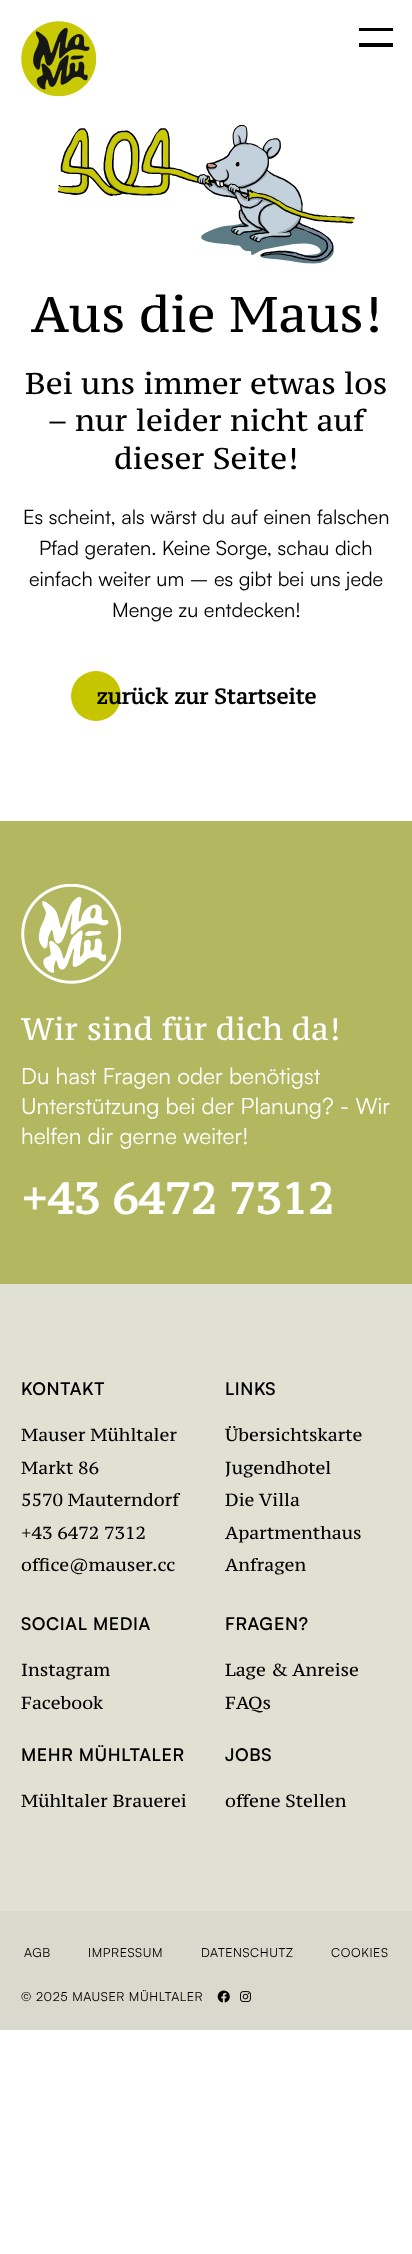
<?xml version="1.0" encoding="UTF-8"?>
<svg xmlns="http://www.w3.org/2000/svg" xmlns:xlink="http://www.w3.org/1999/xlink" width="412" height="2254">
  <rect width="100%" height="100%" fill="#ffffff" />
  <image x="21" y="21" width="75" height="75" xlink:href="image1.png" />
  <rect x="359" y="28" width="34" height="3" fill="#000000" />
  <rect x="359" y="43" width="34" height="4" fill="#000000" />
  <image x="58" y="125" width="297" height="139" xlink:href="image2.png" />
  <circle cx="96" cy="696" r="25" fill="#c6c500" />
  <rect y="821" width="412" height="463" fill="#b3b75f" />
  <image x="21" y="884" width="100" height="100" xlink:href="image3.png" />
  <rect y="1284" width="412" height="627" fill="#e0e0d3" />
  <rect y="1911" width="412" height="119" fill="#d9d9cd" />
  <image x="217" y="1990" width="13" height="13" xlink:href="image4.png" />
  <image x="240" y="1991" width="11" height="11" xlink:href="image5.png" />
  <text x="31" y="332" style="font-family: PT Serif Caption; font-size: 50px; fill: #000000">Aus die Maus!</text>
  <text x="25" y="394" style="font-family: PT Serif Caption; font-size: 30px; fill: #000000">Bei uns immer etwas los</text>
  <text x="47" y="431" style="font-family: PT Serif Caption; font-size: 30px; fill: #000000">– nur leider nicht auf</text>
  <text x="114" y="469" style="font-family: PT Serif Caption; font-size: 30px; fill: #000000">dieser Seite!</text>
  <text x="23" y="524" style="font-family: Satoshi; font-size: 20px; fill: #000000">Es scheint, als wärst du auf einen falschen</text>
  <text x="39" y="555" style="font-family: Satoshi; font-size: 20px; fill: #000000">Pfad geraten. Keine Sorge, schau dich</text>
  <text x="29" y="586" style="font-family: Satoshi; font-size: 20px; fill: #000000">einfach weiter um – es gibt bei uns jede</text>
  <text x="112" y="617" style="font-family: Satoshi; font-size: 20px; fill: #000000">Menge zu entdecken!</text>
  <text x="96" y="704" style="font-family: PT Serif Caption; font-size: 21.25px; font-weight: bold; fill: #000000">zurück zur Startseite</text>
  <text x="21" y="1040" style="font-family: PT Serif Caption; font-size: 31.25px; fill: #ffffff">Wir sind für dich da!</text>
  <text x="21" y="1084" style="font-family: Satoshi; font-size: 22.5px; fill: #ffffff">Du hast Fragen oder benötigst</text>
  <text x="21" y="1114" style="font-family: Satoshi; font-size: 22.5px; fill: #ffffff">Unterstützung bei der Planung? - Wir</text>
  <text x="21" y="1144" style="font-family: Satoshi; font-size: 22.5px; fill: #ffffff">helfen dir gerne weiter!</text>
  <text x="21" y="1214" style="font-family: PT Serif Caption; font-size: 43.75px; font-weight: bold; fill: #ffffff">+43 6472 7312</text>
  <text x="21" y="1395" style="font-family: Satoshi; font-size: 17.5px; font-weight: 600; letter-spacing: 0.6px; fill: #000000">KONTAKT</text>
  <text x="21" y="1441" style="font-family: PT Serif Caption; font-size: 17.5px; fill: #000000">Mauser Mühltaler</text>
  <text x="21" y="1474" style="font-family: PT Serif Caption; font-size: 17.5px; fill: #000000">Markt 86</text>
  <text x="21" y="1506" style="font-family: PT Serif Caption; font-size: 17.5px; fill: #000000">5570 Mauterndorf</text>
  <text x="21" y="1539" style="font-family: PT Serif Caption; font-size: 17.5px; fill: #000000">+43 6472 7312</text>
  <text x="21" y="1571" style="font-family: PT Serif Caption; font-size: 17.5px; fill: #000000">office@mauser.cc</text>
  <text x="225" y="1395" style="font-family: Satoshi; font-size: 17.5px; font-weight: 600; letter-spacing: 0.6px; fill: #000000">LINKS</text>
  <text x="225" y="1441" style="font-family: PT Serif Caption; font-size: 17.5px; fill: #000000">Übersichtskarte</text>
  <text x="225" y="1474" style="font-family: PT Serif Caption; font-size: 17.5px; fill: #000000">Jugendhotel</text>
  <text x="225" y="1506" style="font-family: PT Serif Caption; font-size: 17.5px; fill: #000000">Die Villa</text>
  <text x="225" y="1539" style="font-family: PT Serif Caption; font-size: 17.5px; fill: #000000">Apartmenthaus</text>
  <text x="225" y="1571" style="font-family: PT Serif Caption; font-size: 17.5px; fill: #000000">Anfragen</text>
  <text x="21" y="1630" style="font-family: Satoshi; font-size: 17.5px; font-weight: 600; letter-spacing: 0.6px; fill: #000000">SOCIAL MEDIA</text>
  <text x="21" y="1676" style="font-family: PT Serif Caption; font-size: 17.5px; fill: #000000">Instagram</text>
  <text x="21" y="1709" style="font-family: PT Serif Caption; font-size: 17.5px; fill: #000000">Facebook</text>
  <text x="21" y="1761" style="font-family: Satoshi; font-size: 17.5px; font-weight: 600; letter-spacing: 0.6px; fill: #000000">MEHR MÜHLTALER</text>
  <text x="21" y="1807" style="font-family: PT Serif Caption; font-size: 17.5px; fill: #000000">Mühltaler Brauerei</text>
  <text x="225" y="1630" style="font-family: Satoshi; font-size: 17.5px; font-weight: 600; letter-spacing: 0.6px; fill: #000000">FRAGEN?</text>
  <text x="225" y="1676" style="font-family: PT Serif Caption; font-size: 17.5px; fill: #000000">Lage &amp; Anreise</text>
  <text x="225" y="1709" style="font-family: PT Serif Caption; font-size: 17.5px; fill: #000000">FAQs</text>
  <text x="225" y="1761" style="font-family: Satoshi; font-size: 17.5px; font-weight: 600; letter-spacing: 0.6px; fill: #000000">JOBS</text>
  <text x="225" y="1807" style="font-family: PT Serif Caption; font-size: 17.5px; fill: #000000">offene Stellen</text>
  <text x="24" y="1957" style="font-family: Satoshi; font-size: 12.5px; letter-spacing: 0.6px; fill: #000000">AGB</text>
  <text x="88" y="1957" style="font-family: Satoshi; font-size: 12.5px; letter-spacing: 0.6px; fill: #000000">IMPRESSUM</text>
  <text x="201" y="1957" style="font-family: Satoshi; font-size: 12.5px; letter-spacing: 0.6px; fill: #000000">DATENSCHUTZ</text>
  <text x="331" y="1957" style="font-family: Satoshi; font-size: 12.5px; letter-spacing: 0.6px; fill: #000000">COOKIES</text>
  <text x="21" y="2001" style="font-family: Satoshi; font-size: 12.5px; letter-spacing: 0.6px; fill: #000000">© 2025 MAUSER MÜHLTALER</text>
</svg>
